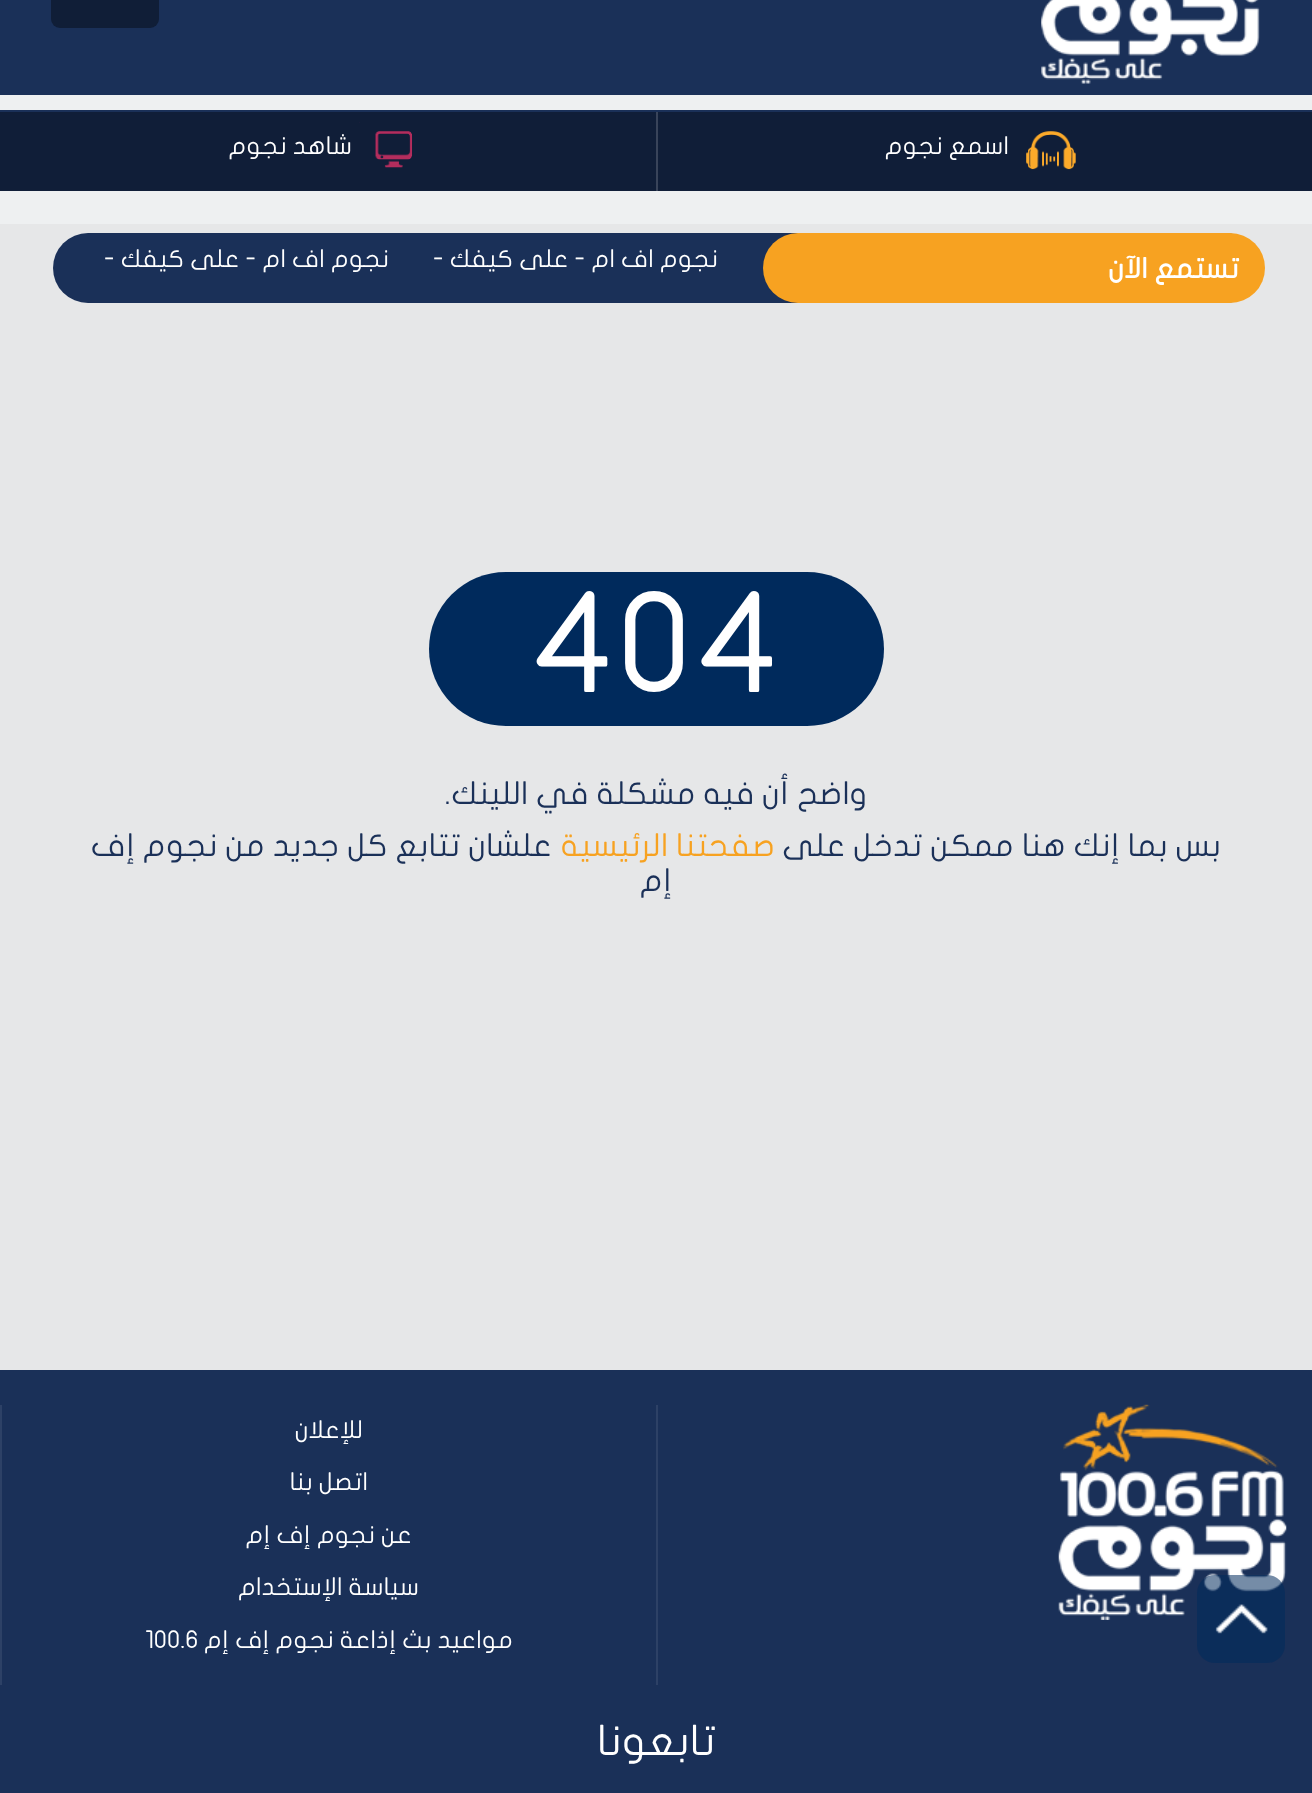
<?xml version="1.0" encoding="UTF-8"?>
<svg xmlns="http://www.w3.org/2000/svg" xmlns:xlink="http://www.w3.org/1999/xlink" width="1312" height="1793">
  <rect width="100%" height="100%" fill="#eef0f1" />
  <rect width="1312" height="95" fill="#1a3058" />
  <image x="1041" y="0" width="219" height="84" xlink:href="image1.png" />
  <rect x="51" y="-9" width="108" height="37" rx="9" fill="#101e37" />
  <rect y="110" width="1312" height="2" fill="#1a3058" />
  <rect x="658" y="112" width="654" height="79" fill="#101e38" />
  <rect x="656" y="112" width="2" height="79" fill="#39445a" />
  <image x="1026" y="131" width="50" height="39" xlink:href="image2.png" />
  <rect y="112" width="656" height="79" fill="#101e38" />
  <image x="359" y="122" width="54" height="46" xlink:href="image3.png" />
  <rect y="224" width="1312" height="1146" fill="#e6e7e8" />
  <rect x="53" y="233" width="1207" height="70" rx="35" fill="#1a3058" />
  <rect x="763" y="233" width="502" height="70" rx="35" fill="#f7a221" />
  <rect x="429" y="572" width="455" height="154" rx="77" fill="#002a5c" />
  <rect y="1370" width="1312" height="423" fill="#1a3058" />
  <image x="1058" y="1404" width="229" height="216" xlink:href="image5.png" />
  <rect x="1197" y="1575" width="88" height="88" rx="18" fill="#002a5c" fill-opacity="0.54" />
  <image x="1215" y="1604" width="53" height="30" xlink:href="image4.png" />
  <rect x="656" y="1405" width="2" height="280" fill="#2d4166" />
  <rect y="1405" width="2" height="280" fill="#2d4166" />
  <text x="1009" y="154" style="font-family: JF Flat; font-size: 24.5px; direction: rtl; fill: #ffffff">اسمع نجوم</text>
  <text x="352" y="154" style="font-family: JF Flat; font-size: 24.5px; direction: rtl; fill: #ffffff">شاهد نجوم</text>
  <text x="1239" y="278" style="font-family: JF Flat; font-size: 28px; font-weight: bold; direction: rtl; fill: #ffffff">تستمع الآن</text>
  <text x="718" y="267" style="font-family: JF Flat; font-size: 24.5px; direction: rtl; fill: #ffffff">نجوم اف ام - على كيفك</text>
  <text x="433" y="267" style="font-family: JF Flat; font-size: 24.5px; fill: #ffffff">-</text>
  <text x="389" y="267" style="font-family: JF Flat; font-size: 24.5px; direction: rtl; fill: #ffffff">نجوم اف ام - على كيفك</text>
  <text x="104" y="267" style="font-family: JF Flat; font-size: 24.5px; fill: #ffffff">-</text>
  <text x="529" y="692" style="font-family: JF Flat; font-size: 140px; fill: #ffffff">404</text>
  <text x="867" y="804" style="font-family: JF Flat; font-size: 31.5px; direction: rtl; fill: #1a3058">واضح أن فيه مشكلة في اللينك.</text>
  <text x="1221" y="856" style="font-family: JF Flat; font-size: 31.5px; direction: rtl; fill: #1a3058">بس بما إنك هنا ممكن تدخل على</text>
  <text x="775" y="856" style="font-family: JF Flat; font-size: 31.5px; direction: rtl; fill: #f7a221">صفحتنا الرئيسية</text>
  <text x="552" y="856" style="font-family: JF Flat; font-size: 31.5px; direction: rtl; fill: #1a3058">علشان تتابع كل جديد من نجوم إف</text>
  <text x="672" y="891" style="font-family: JF Flat; font-size: 31.5px; direction: rtl; fill: #1a3058">إم</text>
  <text x="363" y="1438" style="font-family: JF Flat; font-size: 24.5px; direction: rtl; fill: #ffffff">للإعلان</text>
  <text x="368" y="1490" style="font-family: JF Flat; font-size: 24.5px; direction: rtl; fill: #ffffff">اتصل بنا</text>
  <text x="412" y="1543" style="font-family: JF Flat; font-size: 24.5px; direction: rtl; fill: #ffffff">عن نجوم إف إم</text>
  <text x="419" y="1595" style="font-family: JF Flat; font-size: 24.5px; direction: rtl; fill: #ffffff">سياسة الإستخدام</text>
  <text x="513" y="1648" style="font-family: JF Flat; font-size: 24.5px; direction: rtl; fill: #ffffff">مواعيد بث إذاعة نجوم إف إم</text>
  <text x="145" y="1648" style="font-family: JF Flat; font-size: 24.5px; fill: #ffffff">100.6</text>
  <text x="716" y="1755" style="font-family: JF Flat; font-size: 42px; direction: rtl; fill: #ffffff">تابعونا</text>
</svg>
